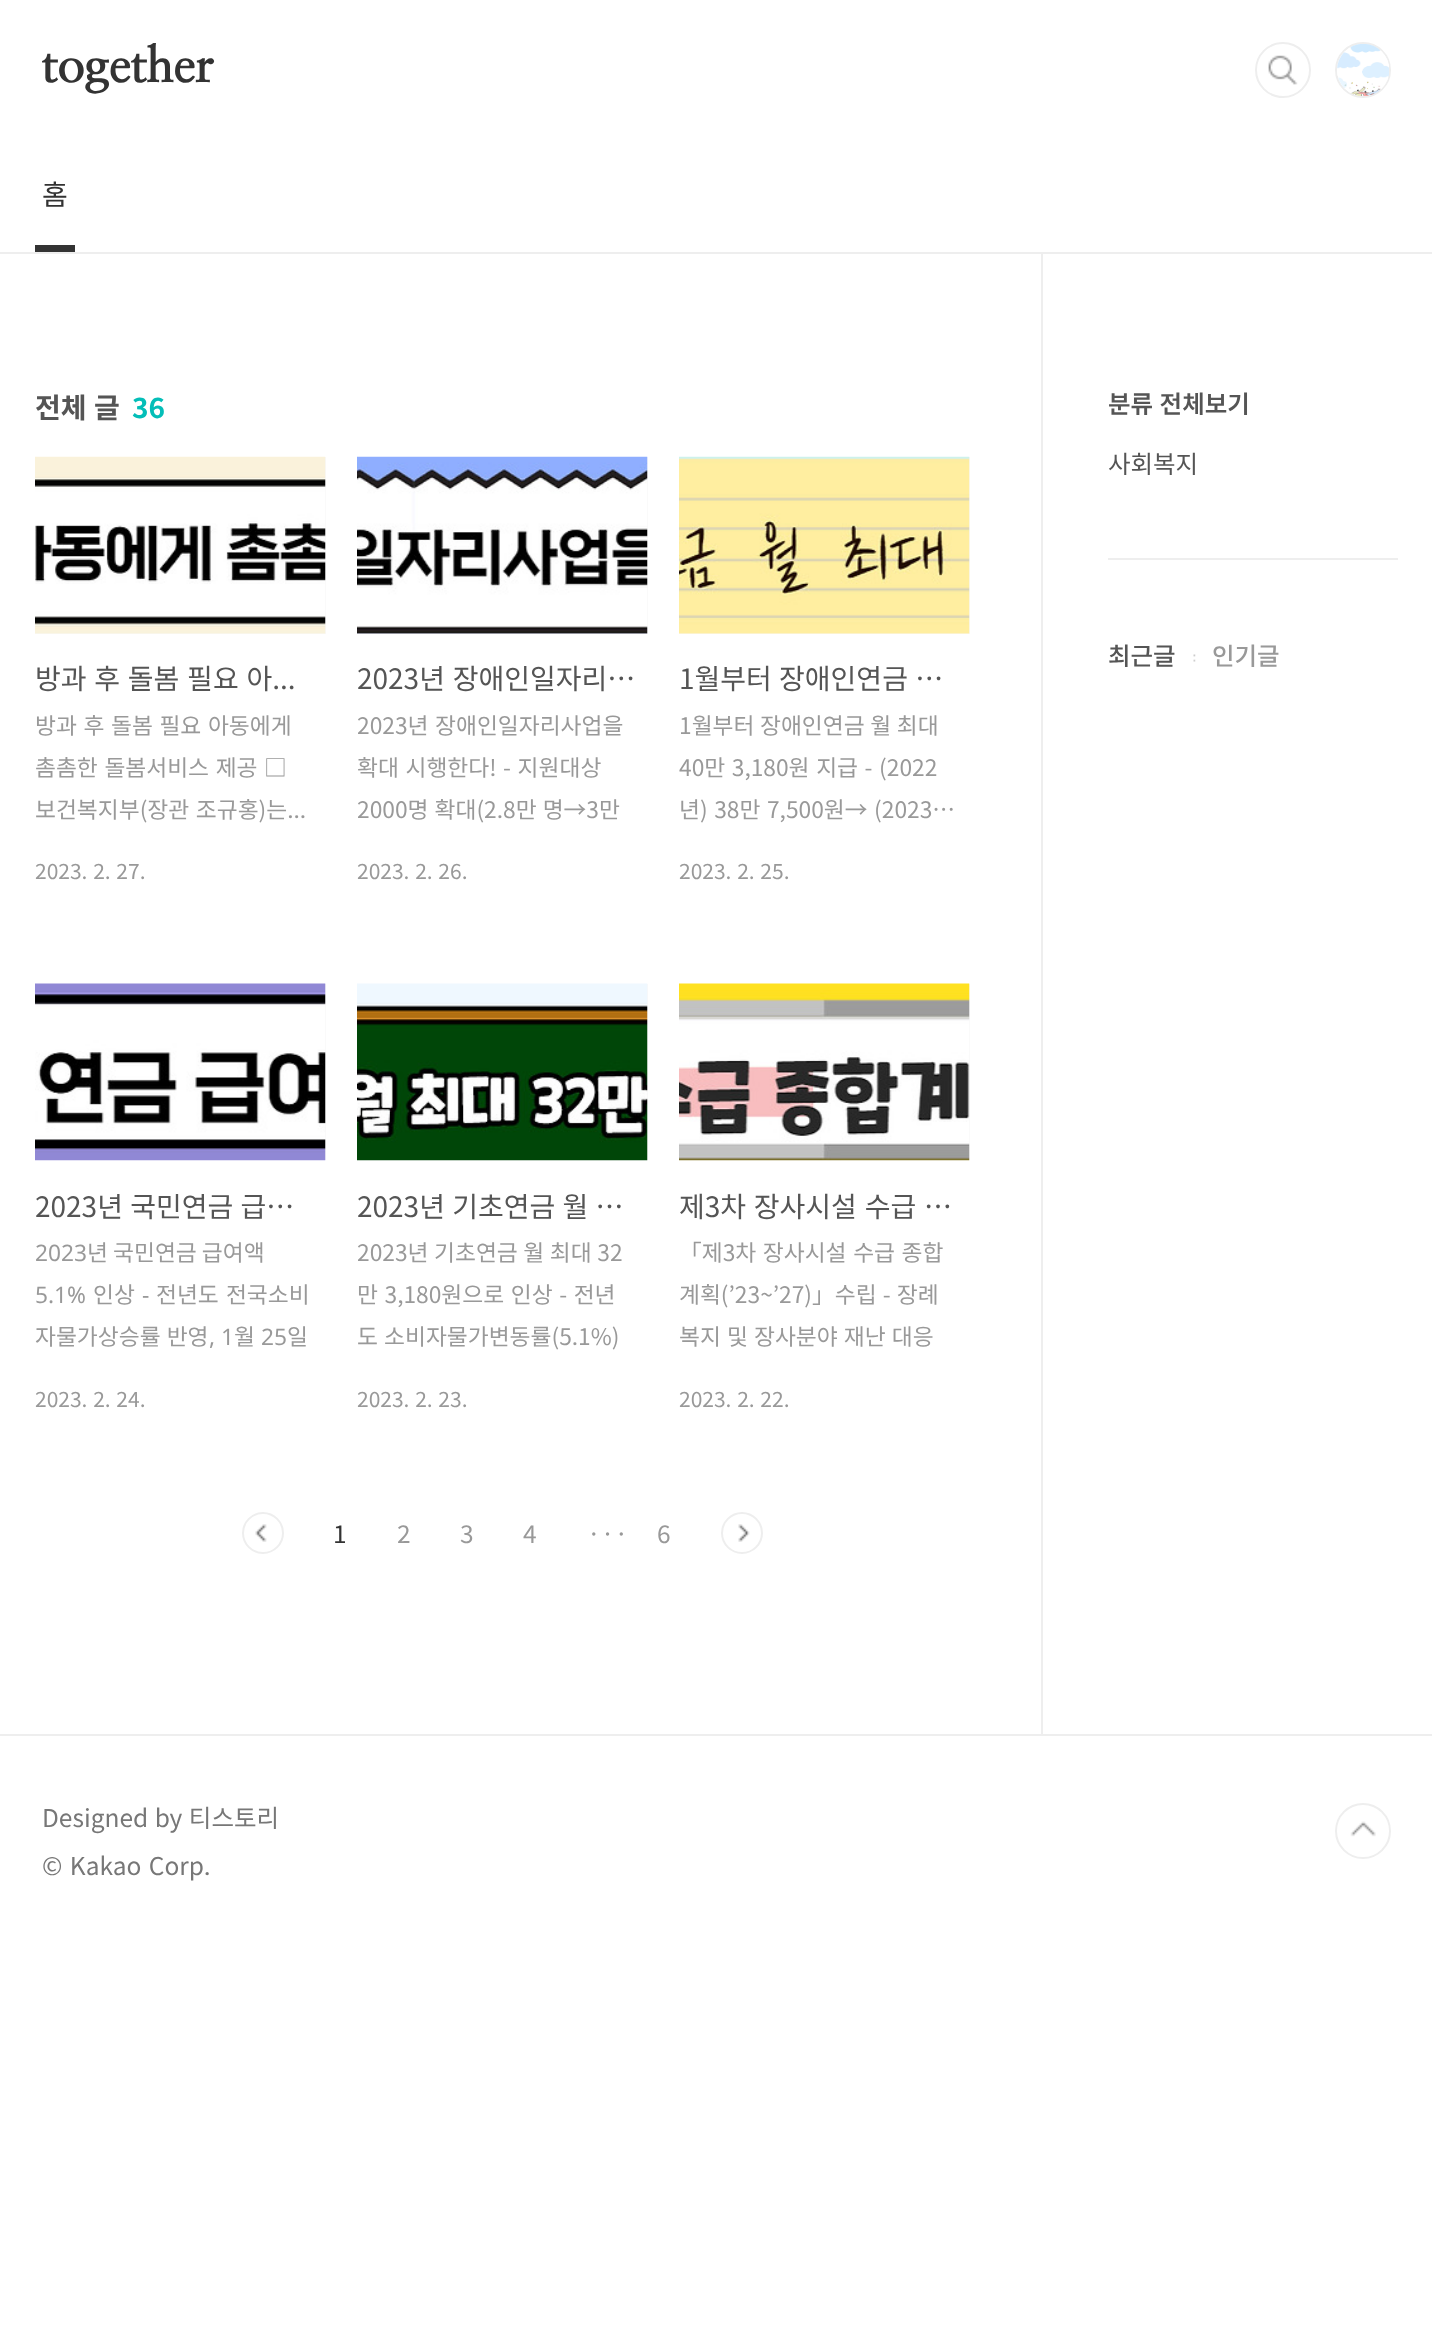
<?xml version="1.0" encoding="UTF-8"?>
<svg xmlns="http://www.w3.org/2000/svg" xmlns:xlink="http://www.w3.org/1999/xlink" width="1432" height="2330">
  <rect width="100%" height="100%" fill="#ffffff" />
  <rect y="252" width="1432" height="2" fill="#eeeeee" />
  <image x="1268" y="55" width="30" height="30" xlink:href="image1.png" />
  <circle cx="1283" cy="70" r="27" fill="none" stroke="#eeeeee" stroke-width="2" />
  <circle cx="1363" cy="70" r="27" fill="none" stroke="#eeeeee" stroke-width="2" />
  <image x="1337" y="44" width="52" height="52" xlink:href="image2.png" />
  <rect x="35" y="245" width="40" height="7" fill="#333333" />
  <rect x="35" y="457" width="291" height="177" fill="#f8f8f8" />
  <image x="35" y="456" width="291" height="178" xlink:href="image3.png" />
  <rect x="357" y="457" width="291" height="177" fill="#f8f8f8" />
  <image x="357" y="456" width="291" height="178" xlink:href="image4.png" />
  <rect x="679" y="457" width="291" height="177" fill="#f8f8f8" />
  <image x="679" y="456" width="291" height="178" xlink:href="image5.png" />
  <rect x="325" y="984" width="1" height="176" fill="#f8f8f8" />
  <image x="35" y="983" width="291" height="178" xlink:href="image6.png" />
  <rect x="647" y="984" width="1" height="176" fill="#f8f8f8" />
  <image x="357" y="983" width="291" height="178" xlink:href="image7.png" />
  <rect x="969" y="984" width="1" height="176" fill="#f8f8f8" />
  <image x="679" y="983" width="291" height="178" xlink:href="image8.png" />
  <image x="255" y="1524" width="12" height="18" xlink:href="image9.png" />
  <circle cx="263" cy="1533" r="20" fill="none" stroke="#eeeeee" stroke-width="2" />
  <image x="738" y="1524" width="12" height="18" xlink:href="image10.png" />
  <circle cx="742" cy="1533" r="20" fill="none" stroke="#eeeeee" stroke-width="2" />
  <rect x="1041" y="254" width="2" height="1480" fill="#eeeeee" />
  <rect x="1108" y="558" width="290" height="2" fill="#eeeeee" />
  <image x="1193" y="654" width="3" height="8" xlink:href="image11.png" />
  <rect y="1734" width="1432" height="2" fill="#eeeeee" />
  <image x="1350" y="1821" width="26" height="16" xlink:href="image12.png" />
  <circle cx="1363" cy="1831" r="27" fill="none" stroke="#eeeeee" stroke-width="2" />
  <text x="42" y="82" style="font-family: NanumMyeongjo; font-size: 49px; font-weight: 800; letter-spacing: -0.25px; fill: #333333">together</text>
  <text x="42" y="205" style="font-family: Noto Sans KR; font-size: 28px; fill: #333333">홈</text>
  <text x="35" y="418" word-spacing="1" style="font-family: Noto Sans KR; font-size: 28px; font-weight: bold; fill: #555555">전체 글</text>
  <text x="132" y="418" style="font-family: Noto Sans KR; font-size: 28px; font-weight: bold; fill: #04beb8">36</text>
  <text x="35" y="689" word-spacing="1.5" style="font-family: Noto Sans KR; font-size: 28px; fill: #555555">방과 후 돌봄 필요 아...</text>
  <text x="35" y="734" word-spacing="1.5" style="font-family: Noto Sans KR; font-size: 22.75px; fill: #999999">방과 후 돌봄 필요 아동에게</text>
  <text x="35" y="776" word-spacing="1.5" style="font-family: Noto Sans KR; font-size: 22.75px; fill: #999999">촘촘한 돌봄서비스 제공 □</text>
  <text x="35" y="818" word-spacing="1.5" style="font-family: Noto Sans KR; font-size: 22.75px; fill: #999999">보건복지부(장관 조규홍)는...</text>
  <text x="35" y="879" word-spacing="1" style="font-family: Noto Sans KR; font-size: 21px; fill: #999999">2023. 2. 27.</text>
  <text x="357" y="689" word-spacing="1.5" style="font-family: Noto Sans KR; font-size: 28px; fill: #555555">2023년 장애인일자리…</text>
  <text x="357" y="734" word-spacing="1.5" style="font-family: Noto Sans KR; font-size: 22.75px; fill: #999999">2023년 장애인일자리사업을</text>
  <text x="357" y="776" word-spacing="1.5" style="font-family: Noto Sans KR; font-size: 22.75px; fill: #999999">확대 시행한다! - 지원대상</text>
  <text x="357" y="818" word-spacing="1" style="font-family: Noto Sans KR; font-size: 22.75px; fill: #999999">2000명 확대(2.8만 명→3만</text>
  <text x="357" y="879" word-spacing="1" style="font-family: Noto Sans KR; font-size: 21px; fill: #999999">2023. 2. 26.</text>
  <text x="679" y="689" word-spacing="1" style="font-family: Noto Sans KR; font-size: 28px; fill: #555555">1월부터 장애인연금 …</text>
  <text x="679" y="734" word-spacing="0.5" style="font-family: Noto Sans KR; font-size: 22.75px; fill: #999999">1월부터 장애인연금 월 최대</text>
  <text x="679" y="776" word-spacing="1.5" style="font-family: Noto Sans KR; font-size: 22.75px; fill: #999999">40만 3,180원 지급 - (2022</text>
  <text x="679" y="818" word-spacing="1.5" style="font-family: Noto Sans KR; font-size: 22.75px; fill: #999999">년) 38만 7,500원→ (2023…</text>
  <text x="679" y="879" word-spacing="1" style="font-family: Noto Sans KR; font-size: 21px; fill: #999999">2023. 2. 25.</text>
  <text x="35" y="1217" word-spacing="1" style="font-family: Noto Sans KR; font-size: 28px; fill: #555555">2023년 국민연금 급…</text>
  <text x="35" y="1261" style="font-family: Noto Sans; font-size: 22.75px; fill: #999999">2023</text>
  <text x="87" y="1261" style="font-family: Noto Sans KR; font-size: 22.75px; fill: #999999">년 국민연금 급여액</text>
  <text x="35" y="1303" style="font-family: Noto Sans; font-size: 22.75px; fill: #999999">5.1%</text>
  <text x="93" y="1303" style="font-family: Noto Sans KR; font-size: 22.75px; fill: #999999">인상</text>
  <text x="142" y="1303" style="font-family: Noto Sans; font-size: 22.75px; fill: #999999">-</text>
  <text x="156" y="1303" word-spacing="2" style="font-family: Noto Sans KR; font-size: 22.75px; fill: #999999">전년도 전국소비</text>
  <text x="35" y="1345" word-spacing="1" style="font-family: Noto Sans KR; font-size: 22.75px; fill: #999999">자물가상승률 반영</text>
  <text x="209" y="1345" style="font-family: Noto Sans; font-size: 22.75px; fill: #999999">, 1</text>
  <text x="234" y="1345" style="font-family: Noto Sans KR; font-size: 22.75px; fill: #999999">월</text>
  <text x="261" y="1345" style="font-family: Noto Sans; font-size: 22.75px; fill: #999999">25</text>
  <text x="287" y="1345" style="font-family: Noto Sans KR; font-size: 22.75px; fill: #999999">일</text>
  <text x="35" y="1407" word-spacing="1" style="font-family: Noto Sans KR; font-size: 21px; fill: #999999">2023. 2. 24.</text>
  <text x="357" y="1217" word-spacing="1" style="font-family: Noto Sans KR; font-size: 28px; fill: #555555">2023년 기초연금 월 …</text>
  <text x="357" y="1261" word-spacing="0.5" style="font-family: Noto Sans KR; font-size: 22.75px; fill: #999999">2023년 기초연금 월 최대 32</text>
  <text x="357" y="1303" word-spacing="1.5" style="font-family: Noto Sans KR; font-size: 22.75px; fill: #999999">만 3,180원으로 인상 - 전년</text>
  <text x="357" y="1345" word-spacing="1" style="font-family: Noto Sans KR; font-size: 22.75px; fill: #999999">도 소비자물가변동률(5.1%)</text>
  <text x="357" y="1407" word-spacing="1" style="font-family: Noto Sans KR; font-size: 21px; fill: #999999">2023. 2. 23.</text>
  <text x="679" y="1217" word-spacing="1.5" style="font-family: Noto Sans KR; font-size: 28px; fill: #555555">제3차 장사시설 수급 …</text>
  <text x="679" y="1261" word-spacing="1.5" style="font-family: Noto Sans KR; font-size: 22.75px; fill: #999999">「제3차 장사시설 수급 종합</text>
  <text x="679" y="1303" word-spacing="1" style="font-family: Noto Sans KR; font-size: 22.75px; fill: #999999">계획(’23~’27)」수립 - 장례</text>
  <text x="679" y="1345" word-spacing="1" style="font-family: Noto Sans KR; font-size: 22.75px; fill: #999999">복지 및 장사분야 재난 대응</text>
  <text x="679" y="1407" word-spacing="1" style="font-family: Noto Sans KR; font-size: 21px; fill: #999999">2023. 2. 22.</text>
  <text x="333" y="1543" style="font-family: Noto Sans KR; font-size: 24.5px; fill: #333333">1</text>
  <text x="397" y="1543" style="font-family: Noto Sans KR; font-size: 24.5px; fill: #999999">2</text>
  <text x="460" y="1543" style="font-family: Noto Sans KR; font-size: 24.5px; fill: #999999">3</text>
  <text x="523" y="1543" style="font-family: Noto Sans KR; font-size: 24.5px; fill: #999999">4</text>
  <text x="587" y="1543" style="font-family: Noto Sans KR; font-size: 24.5px; fill: #999999">···</text>
  <text x="657" y="1543" style="font-family: Noto Sans KR; font-size: 24.5px; fill: #999999">6</text>
  <text x="1108" y="413" word-spacing="1" style="font-family: Noto Sans KR; font-size: 24.5px; font-weight: 600; fill: #555555">분류 전체보기</text>
  <text x="1108" y="473" style="font-family: Noto Sans KR; font-size: 24.5px; fill: #555555">사회복지</text>
  <text x="1108" y="665" style="font-family: Noto Sans KR; font-size: 24.5px; font-weight: 500; fill: #555555">최근글</text>
  <text x="1212" y="665" style="font-family: Noto Sans KR; font-size: 24.5px; font-weight: 500; fill: #999999">인기글</text>
  <text x="42" y="1827" word-spacing="1" style="font-family: Noto Sans KR; font-size: 24.5px; fill: #777777">Designed by 티스토리</text>
  <text x="42" y="1875" word-spacing="2" style="font-family: Noto Sans KR; font-size: 24.5px; fill: #777777">© Kakao Corp.</text>
</svg>
